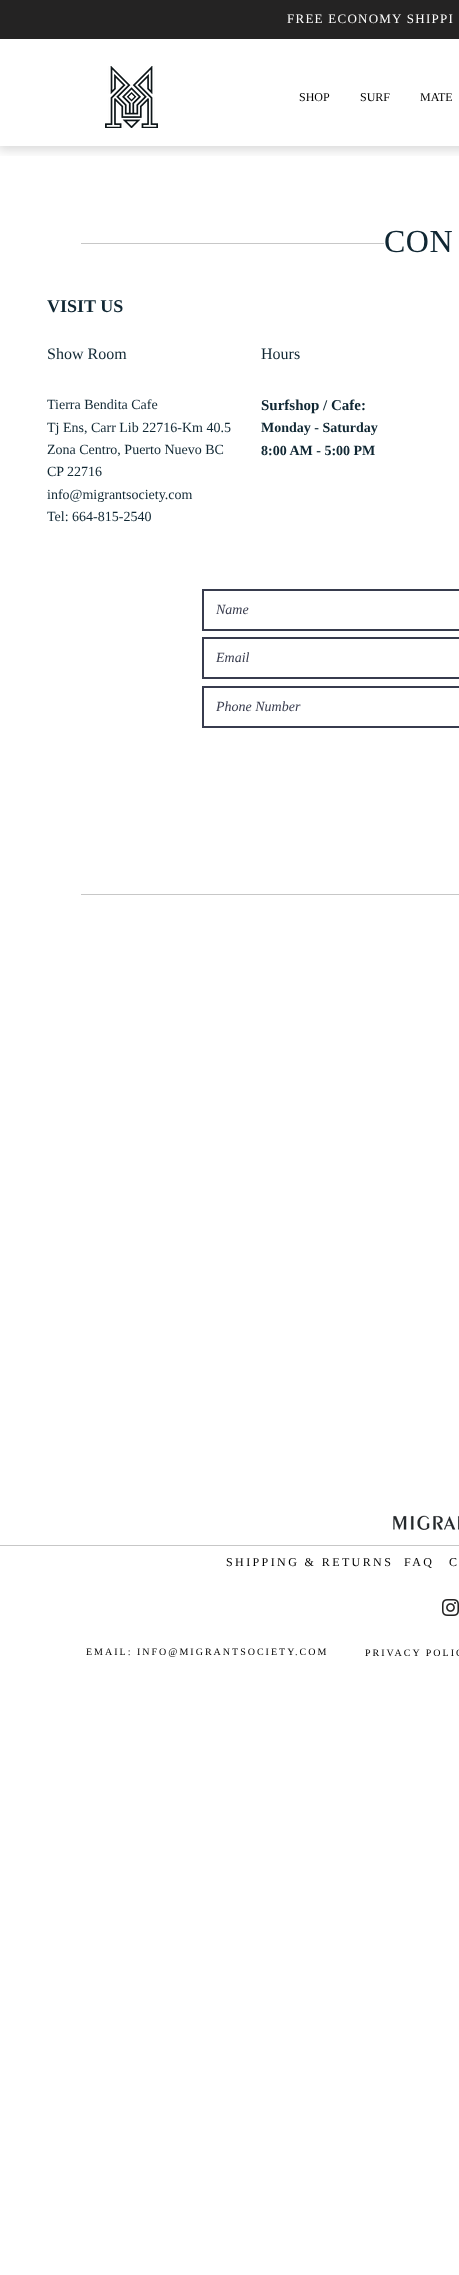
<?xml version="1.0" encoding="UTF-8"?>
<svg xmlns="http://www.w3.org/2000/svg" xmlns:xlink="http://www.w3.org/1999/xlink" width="459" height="2275">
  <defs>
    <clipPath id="clip1"><rect x="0" y="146" width="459" height="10" /></clipPath>
  </defs>
  <rect width="100%" height="100%" fill="#ffffff" />
  <g clip-path="url(#clip1)">
    <rect x="-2" width="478" height="150" fill="#000000" fill-opacity="0.15" filter="blur(5.5px)" />
  </g>
  <rect width="459" height="39" fill="#242323" />
  <image x="105" y="66" width="53" height="62" xlink:href="image1.png" />
  <rect x="81" y="243" width="303" height="1" fill="#c7c7c7" />
  <rect x="203" y="590" width="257" height="40" fill="none" stroke="#373b4d" stroke-width="2" />
  <rect x="203" y="638" width="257" height="40" fill="none" stroke="#373b4d" stroke-width="2" />
  <rect x="203" y="687" width="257" height="40" fill="none" stroke="#373b4d" stroke-width="2" />
  <rect x="81" y="894" width="378" height="1" fill="#c7c7c7" />
  <image x="393" y="1515" width="66" height="15" xlink:href="image2.png" />
  <rect y="1545" width="459" height="1" fill="#c7c7c7" />
  <image x="442" y="1599" width="17" height="17" xlink:href="image3.png" />
  <text x="287" y="23" style="font-family: Liberation Serif; font-size: 13px; letter-spacing: 1.25px; fill: #ffffff">FREE ECONOMY SHIPPI</text>
  <text x="299" y="101" style="font-family: Liberation Serif; font-size: 12px; fill: #000000">SHOP</text>
  <text x="360" y="101" style="font-family: Liberation Serif; font-size: 12px; fill: #000000">SURF</text>
  <text x="420" y="101" style="font-family: Liberation Serif; font-size: 12px; fill: #000000">MATE</text>
  <text x="384" y="252" style="font-family: Liberation Serif; font-size: 32px; letter-spacing: 0.5px; fill: #102733">CON</text>
  <text x="47" y="312" style="font-family: Liberation Serif; font-size: 18px; font-weight: bold; fill: #102733">VISIT US</text>
  <text x="47" y="359" style="font-family: Liberation Serif; font-size: 16px; fill: #102733">Show Room</text>
  <text x="261" y="359" style="font-family: Liberation Serif; font-size: 16px; fill: #102733">Hours</text>
  <text x="47" y="409" style="font-family: Liberation Serif; font-size: 14px; fill: #102733">Tierra Bendita Cafe</text>
  <text x="47" y="432" style="font-family: Liberation Serif; font-size: 14px; fill: #102733">Tj Ens, Carr Lib 22716-Km 40.5</text>
  <text x="47" y="454" style="font-family: Liberation Serif; font-size: 14px; fill: #102733">Zona Centro, Puerto Nuevo BC</text>
  <text x="47" y="476" style="font-family: Liberation Serif; font-size: 14px; fill: #102733">CP 22716</text>
  <text x="47" y="499" style="font-family: Liberation Serif; font-size: 14px; fill: #102733">info@migrantsociety.com</text>
  <text x="47" y="521" style="font-family: Liberation Serif; font-size: 14px; fill: #102733">Tel: 664-815-2540</text>
  <text x="261" y="410" style="font-family: Liberation Serif; font-size: 15px; font-weight: bold; fill: #102733">Surfshop / Cafe:</text>
  <text x="261" y="432" style="font-family: Liberation Serif; font-size: 14px; font-weight: bold; fill: #102733">Monday - Saturday</text>
  <text x="261" y="455" style="font-family: Liberation Serif; font-size: 14px; font-weight: bold; fill: #102733">8:00 AM - 5:00 PM</text>
  <text x="216" y="614" style="font-family: Liberation Serif; font-size: 14px; font-style: italic; fill: #373b4d">Name</text>
  <text x="216" y="662" style="font-family: Liberation Serif; font-size: 14px; font-style: italic; fill: #373b4d">Email</text>
  <text x="216" y="711" style="font-family: Liberation Serif; font-size: 14px; font-style: italic; fill: #373b4d">Phone Number</text>
  <text x="226" y="1566" style="font-family: Liberation Serif; font-size: 12px; letter-spacing: 2.4px; fill: #000000">SHIPPING &amp; RETURNS</text>
  <text x="404" y="1566" style="font-family: Liberation Serif; font-size: 12px; letter-spacing: 2.4px; fill: #000000">FAQ</text>
  <text x="449" y="1566" style="font-family: Liberation Serif; font-size: 12px; letter-spacing: 2.4px; fill: #000000">C</text>
  <text x="86" y="1655" style="font-family: Liberation Serif; font-size: 10px; letter-spacing: 2px; fill: #000000">EMAIL: INFO@MIGRANTSOCIETY.COM</text>
  <text x="365" y="1656" style="font-family: Liberation Serif; font-size: 10px; letter-spacing: 2px; fill: #000000">PRIVACY POLIC</text>
</svg>
